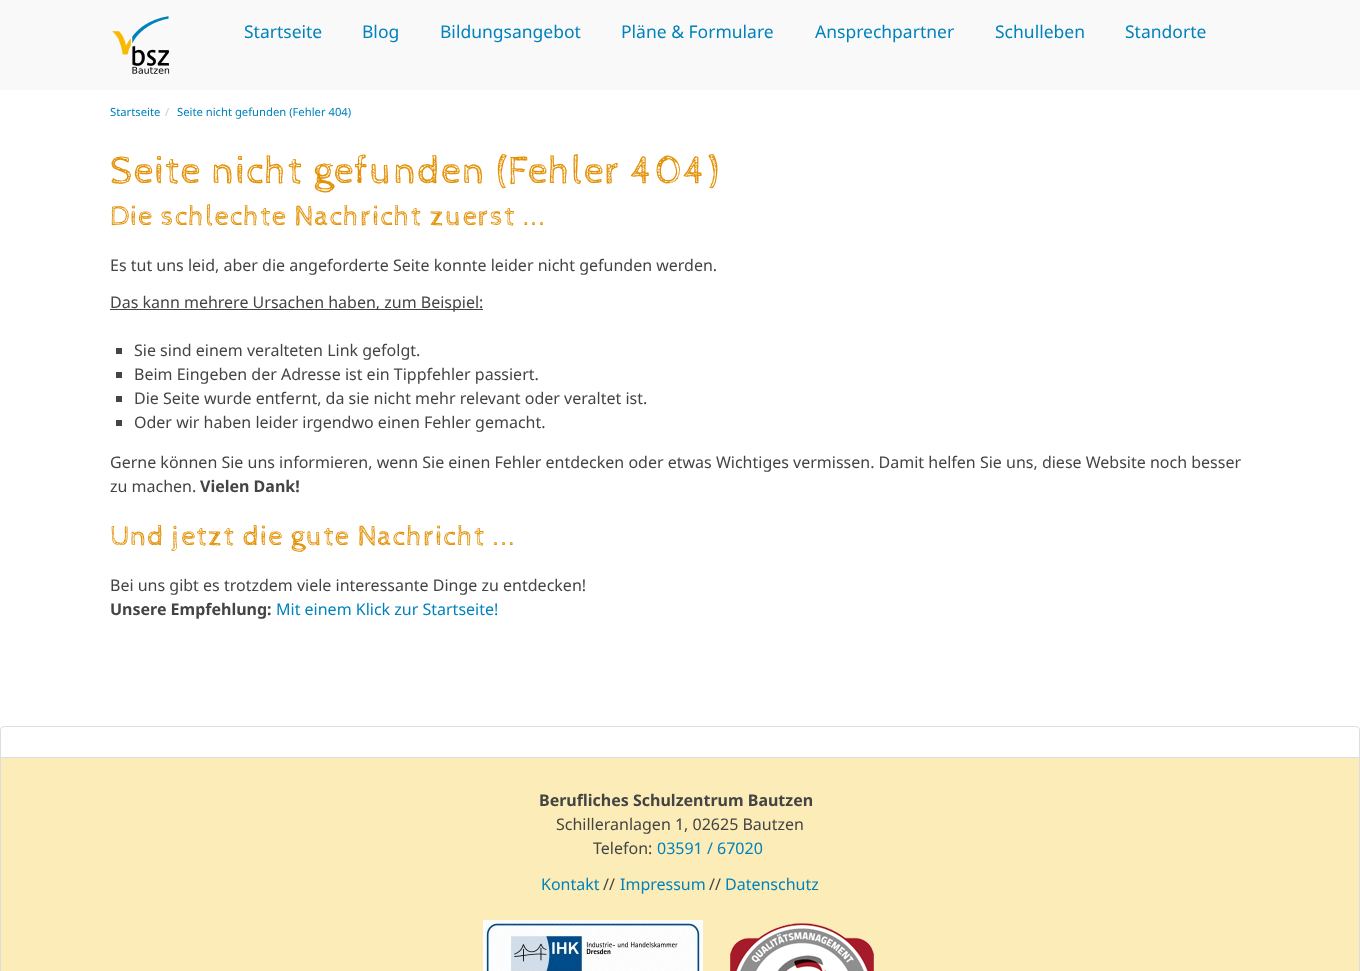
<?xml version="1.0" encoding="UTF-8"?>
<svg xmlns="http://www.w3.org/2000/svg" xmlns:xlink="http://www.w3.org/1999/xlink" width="1360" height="971">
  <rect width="100%" height="100%" fill="#ffffff" />
  <rect width="1360" height="90" fill="#f9f9f9" />
  <image x="112" y="16" width="58" height="58" xlink:href="image1.png" />
  <rect x="110" y="309" width="373" height="1" fill="#444444" />
  <rect x="116" y="348" width="6" height="6" fill="#444444" />
  <rect x="116" y="372" width="6" height="6" fill="#444444" />
  <rect x="116" y="396" width="6" height="6" fill="#444444" />
  <rect x="116" y="420" width="6" height="6" fill="#444444" />
  <rect x="0.5" y="726.5" width="1359" height="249" rx="3.5" fill="none" stroke="#dddddd" />
  <rect x="1" y="758" width="1358" height="213" fill="#fcecb8" />
  <rect x="1" y="757" width="1358" height="1" fill="#dddddd" />
  <image x="483" y="920" width="220" height="51" xlink:href="image2.png" />
  <image x="730" y="923" width="144" height="48" xlink:href="image3.png" />
  <text x="244" y="38" style="font-family: Noto Sans; font-size: 17.5px; fill: #0082bc">Startseite</text>
  <text x="362" y="38" style="font-family: Noto Sans; font-size: 17.5px; fill: #0082bc">Blog</text>
  <text x="440" y="38" style="font-family: Noto Sans; font-size: 17.5px; fill: #0082bc">Bildungsangebot</text>
  <text x="621" y="38" style="font-family: Noto Sans; font-size: 17.5px; fill: #0082bc">Pläne &amp; Formulare</text>
  <text x="815" y="38" style="font-family: Noto Sans; font-size: 17.5px; fill: #0082bc">Ansprechpartner</text>
  <text x="995" y="38" style="font-family: Noto Sans; font-size: 17.5px; fill: #0082bc">Schulleben</text>
  <text x="1125" y="38" style="font-family: Noto Sans; font-size: 17.5px; fill: #0082bc">Standorte</text>
  <text x="110" y="116" style="font-family: Noto Sans; font-size: 11.25px; fill: #0082bc">Startseite</text>
  <text x="165" y="116" style="font-family: Noto Sans; font-size: 11.25px; fill: #cccccc">/</text>
  <text x="177" y="116" style="font-family: Noto Sans; font-size: 11.25px; fill: #0082bc">Seite nicht gefunden (Fehler 404)</text>
  <text x="110" y="183" style="font-family: Cabin Sketch; font-size: 40px; letter-spacing: 1px; fill: #e39105">Seite nicht gefunden (Fehler 404)</text>
  <text x="110" y="225" style="font-family: Cabin Sketch; font-size: 28.75px; letter-spacing: 1px; fill: #e39105">Die schlechte Nachricht zuerst ...</text>
  <text x="110" y="271" style="font-family: Noto Sans; font-size: 16px; fill: #444444">Es tut uns leid, aber die angeforderte Seite konnte leider nicht gefunden werden.</text>
  <text x="110" y="308" style="font-family: Noto Sans; font-size: 16px; fill: #444444">Das kann mehrere Ursachen haben, zum Beispiel:</text>
  <text x="134" y="356" style="font-family: Noto Sans; font-size: 16px; fill: #444444">Sie sind einem veralteten Link gefolgt.</text>
  <text x="134" y="380" style="font-family: Noto Sans; font-size: 16px; fill: #444444">Beim Eingeben der Adresse ist ein Tippfehler passiert.</text>
  <text x="134" y="404" style="font-family: Noto Sans; font-size: 16px; fill: #444444">Die Seite wurde entfernt, da sie nicht mehr relevant oder veraltet ist.</text>
  <text x="134" y="428" style="font-family: Noto Sans; font-size: 16px; fill: #444444">Oder wir haben leider irgendwo einen Fehler gemacht.</text>
  <text x="110" y="468" style="font-family: Noto Sans; font-size: 16px; fill: #444444">Gerne können Sie uns informieren, wenn Sie einen Fehler entdecken oder etwas Wichtiges vermissen. Damit helfen Sie uns, diese Website noch besser</text>
  <text x="110" y="492" style="font-family: Noto Sans; font-size: 16px; fill: #444444">zu machen.</text>
  <text x="200" y="492" style="font-family: Noto Sans; font-size: 16px; font-weight: bold; fill: #444444">Vielen Dank!</text>
  <text x="110" y="545" style="font-family: Cabin Sketch; font-size: 28.75px; letter-spacing: 1px; fill: #e39105">Und jetzt die gute Nachricht ...</text>
  <text x="110" y="591" style="font-family: Noto Sans; font-size: 16px; fill: #444444">Bei uns gibt es trotzdem viele interessante Dinge zu entdecken!</text>
  <text x="110" y="615" style="font-family: Noto Sans; font-size: 16px; font-weight: bold; fill: #444444">Unsere Empfehlung:</text>
  <text x="276" y="615" style="font-family: Noto Sans; font-size: 16px; fill: #0082bc">Mit einem Klick zur Startseite!</text>
  <text x="539" y="806" style="font-family: Noto Sans; font-size: 16px; font-weight: bold; fill: #444444">Berufliches Schulzentrum Bautzen</text>
  <text x="556" y="830" style="font-family: Noto Sans; font-size: 16px; fill: #444444">Schilleranlagen 1, 02625 Bautzen</text>
  <text x="593" y="854" style="font-family: Noto Sans; font-size: 16px; fill: #444444">Telefon:</text>
  <text x="657" y="854" style="font-family: Noto Sans; font-size: 16px; fill: #0082bc">03591 / 67020</text>
  <text x="541" y="890" style="font-family: Noto Sans; font-size: 16px; fill: #0082bc">Kontakt</text>
  <text x="603" y="890" style="font-family: Noto Sans; font-size: 16px; fill: #444444">//</text>
  <text x="620" y="890" style="font-family: Noto Sans; font-size: 16px; fill: #0082bc">Impressum</text>
  <text x="709" y="890" style="font-family: Noto Sans; font-size: 16px; fill: #444444">//</text>
  <text x="725" y="890" style="font-family: Noto Sans; font-size: 16px; fill: #0082bc">Datenschutz</text>
</svg>
